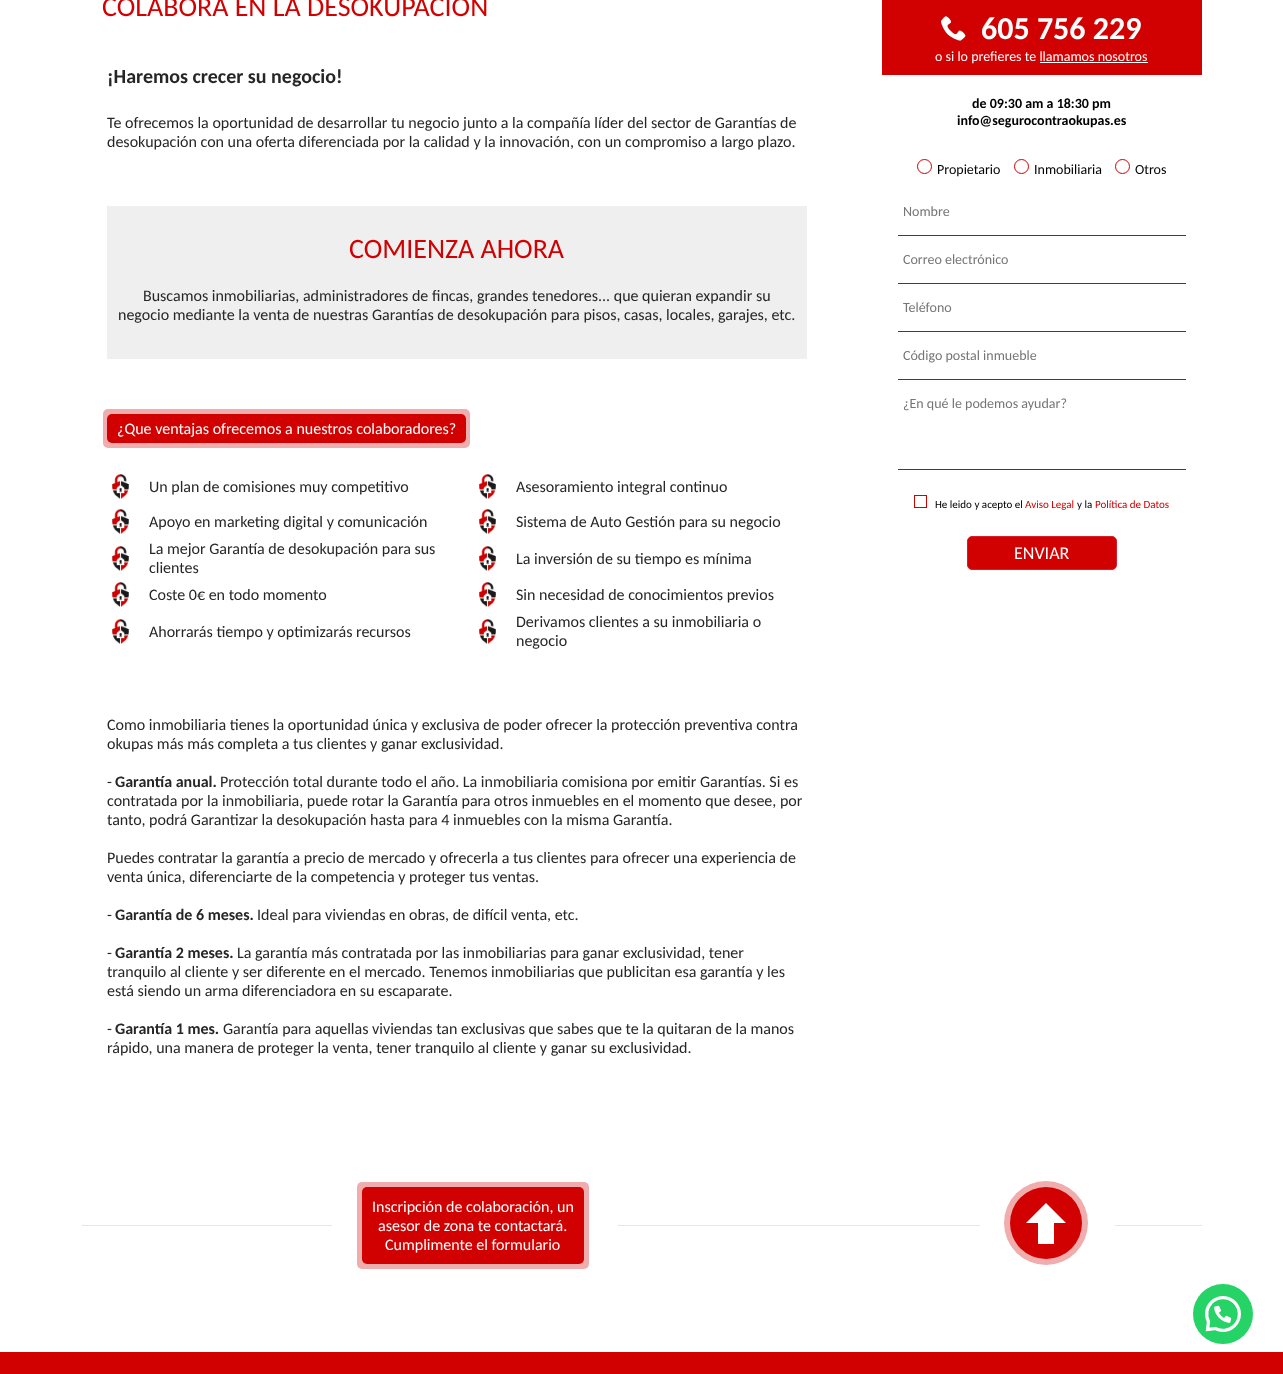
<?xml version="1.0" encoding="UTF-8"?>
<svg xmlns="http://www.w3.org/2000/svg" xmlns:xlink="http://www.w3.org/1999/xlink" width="1283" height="1374">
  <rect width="100%" height="100%" fill="#ffffff" />
  <rect x="107" y="206" width="700" height="153" fill="#efefef" />
  <rect x="103" y="409" width="367" height="39" rx="5" fill="#f0adad" />
  <rect x="107" y="414" width="359" height="29" rx="5" fill="#d10101" />
  <image x="112" y="474" width="17" height="25" xlink:href="image1.png" />
  <image x="479" y="474" width="17" height="25" xlink:href="image1.png" />
  <image x="112" y="509" width="17" height="25" xlink:href="image1.png" />
  <image x="479" y="509" width="17" height="25" xlink:href="image1.png" />
  <image x="112" y="546" width="17" height="25" xlink:href="image1.png" />
  <image x="479" y="546" width="17" height="25" xlink:href="image1.png" />
  <image x="112" y="582" width="17" height="25" xlink:href="image1.png" />
  <image x="479" y="582" width="17" height="25" xlink:href="image1.png" />
  <image x="112" y="619" width="17" height="25" xlink:href="image1.png" />
  <image x="479" y="619" width="17" height="25" xlink:href="image1.png" />
  <rect x="882" width="320" height="75" fill="#d10101" />
  <image x="941" y="16" width="25" height="25" xlink:href="image2.png" />
  <rect x="1040" y="62" width="108" height="1" fill="#ffffff" />
  <circle cx="924.5" cy="166.5" r="7" fill="none" stroke="#d10101" />
  <circle cx="1021.5" cy="166.5" r="7" fill="none" stroke="#d10101" />
  <circle cx="1122.5" cy="166.5" r="7" fill="none" stroke="#d10101" />
  <rect x="898" y="235" width="288" height="1" fill="#d10101" />
  <rect x="898" y="283" width="288" height="1" fill="#d10101" />
  <rect x="898" y="331" width="288" height="1" fill="#d10101" />
  <rect x="898" y="379" width="288" height="1" fill="#d10101" />
  <rect x="898" y="469" width="288" height="1" fill="#d10101" />
  <rect x="914.5" y="495.5" width="12" height="12" fill="none" stroke="#d10101" />
  <rect x="967.5" y="536.5" width="149" height="33" rx="4.5" fill="#d10101" stroke="#d81c2b" />
  <rect x="82" y="1225" width="1120" height="1" fill="#e6e6e6" />
  <rect x="332" y="1225" width="286" height="1" fill="#ffffff" />
  <rect x="357" y="1182" width="232" height="87" rx="5" fill="#f0adad" />
  <rect x="362" y="1187" width="222" height="77" rx="5" fill="#d10101" />
  <rect x="980" y="1225" width="135" height="1" fill="#ffffff" />
  <circle cx="1046" cy="1223" r="42" fill="#f0adad" />
  <circle cx="1046" cy="1223" r="36" fill="#d10101" />
  <path d="M 1046 1203 l -20 20 h 12 v 21 h 16 v -21 h 12 z" fill="#ffffff" />
  <circle cx="1223" cy="1314" r="30" fill="#25d366" />
  <image x="1205" y="1296" width="36" height="36" xlink:href="image3.png" />
  <rect y="1352" width="1283" height="22" fill="#d10101" />
  <text x="102" y="16" style="font-family: Carlito; font-size: 28px; fill: #d10101">COLABORA EN LA DESOKUPACIÓN</text>
  <text x="107" y="83" style="font-family: Carlito; font-size: 20px; font-weight: bold; fill: #272626">¡Haremos crecer su negocio!</text>
  <text x="107" y="128" style="font-family: Carlito; font-size: 16px; fill: #272626">Te ofrecemos la oportunidad de desarrollar tu negocio junto a la compañía líder del sector de Garantías de</text>
  <text x="107" y="147" style="font-family: Carlito; font-size: 16px; fill: #272626">desokupación con una oferta diferenciada por la calidad y la innovación, con un compromiso a largo plazo.</text>
  <text x="349" y="258" style="font-family: Carlito; font-size: 28px; fill: #d10101">COMIENZA AHORA</text>
  <text x="143" y="301" style="font-family: Carlito; font-size: 16px; fill: #272626">Buscamos inmobiliarias, administradores de fincas, grandes tenedores... que quieran expandir su</text>
  <text x="118" y="320" style="font-family: Carlito; font-size: 16px; fill: #272626">negocio mediante la venta de nuestras Garantías de desokupación para pisos, casas, locales, garajes, etc.</text>
  <text x="117" y="434" style="font-family: Carlito; font-size: 16px; fill: #ffffff">¿Que ventajas ofrecemos a nuestros colaboradores?</text>
  <text x="149" y="492" style="font-family: Carlito; font-size: 16px; fill: #272626">Un plan de comisiones muy competitivo</text>
  <text x="516" y="492" style="font-family: Carlito; font-size: 16px; fill: #272626">Asesoramiento integral continuo</text>
  <text x="149" y="527" style="font-family: Carlito; font-size: 16px; fill: #272626">Apoyo en marketing digital y comunicación</text>
  <text x="516" y="527" style="font-family: Carlito; font-size: 16px; fill: #272626">Sistema de Auto Gestión para su negocio</text>
  <text x="149" y="554" style="font-family: Carlito; font-size: 16px; fill: #272626">La mejor Garantía de desokupación para sus</text>
  <text x="149" y="573" style="font-family: Carlito; font-size: 16px; fill: #272626">clientes</text>
  <text x="516" y="564" style="font-family: Carlito; font-size: 16px; fill: #272626">La inversión de su tiempo es mínima</text>
  <text x="149" y="600" style="font-family: Carlito; font-size: 16px; fill: #272626">Coste 0€ en todo momento</text>
  <text x="516" y="600" style="font-family: Carlito; font-size: 16px; fill: #272626">Sin necesidad de conocimientos previos</text>
  <text x="149" y="637" style="font-family: Carlito; font-size: 16px; fill: #272626">Ahorrarás tiempo y optimizarás recursos</text>
  <text x="516" y="627" style="font-family: Carlito; font-size: 16px; fill: #272626">Derivamos clientes a su inmobiliaria o</text>
  <text x="516" y="646" style="font-family: Carlito; font-size: 16px; fill: #272626">negocio</text>
  <text x="107" y="730" style="font-family: Carlito; font-size: 16px; fill: #272626">Como inmobiliaria tienes la oportunidad única y exclusiva de poder ofrecer la protección preventiva contra</text>
  <text x="107" y="749" style="font-family: Carlito; font-size: 16px; fill: #272626">okupas más más completa a tus clientes y ganar exclusividad.</text>
  <text x="107" y="787" style="font-family: Carlito; font-size: 16px; fill: #272626">-</text>
  <text x="115" y="787" style="font-family: Carlito; font-size: 16px; font-weight: bold; fill: #272626">Garantía anual.</text>
  <text x="220" y="787" style="font-family: Carlito; font-size: 16px; fill: #272626">Protección total durante todo el año. La inmobiliaria comisiona por emitir Garantías. Si es</text>
  <text x="107" y="806" style="font-family: Carlito; font-size: 16px; fill: #272626">contratada por la inmobiliaria, puede rotar la Garantía para otros inmuebles en el momento que desee, por</text>
  <text x="107" y="825" style="font-family: Carlito; font-size: 16px; fill: #272626">tanto, podrá Garantizar la desokupación hasta para 4 inmuebles con la misma Garantía.</text>
  <text x="107" y="863" style="font-family: Carlito; font-size: 16px; fill: #272626">Puedes contratar la garantía a precio de mercado y ofrecerla a tus clientes para ofrecer una experiencia de</text>
  <text x="107" y="882" style="font-family: Carlito; font-size: 16px; fill: #272626">venta única, diferenciarte de la competencia y proteger tus ventas.</text>
  <text x="107" y="920" style="font-family: Carlito; font-size: 16px; fill: #272626">-</text>
  <text x="115" y="920" style="font-family: Carlito; font-size: 16px; font-weight: bold; fill: #272626">Garantía de 6 meses.</text>
  <text x="257" y="920" style="font-family: Carlito; font-size: 16px; fill: #272626">Ideal para viviendas en obras, de difícil venta, etc.</text>
  <text x="107" y="958" style="font-family: Carlito; font-size: 16px; fill: #272626">-</text>
  <text x="115" y="958" style="font-family: Carlito; font-size: 16px; font-weight: bold; fill: #272626">Garantía 2 meses.</text>
  <text x="237" y="958" style="font-family: Carlito; font-size: 16px; fill: #272626">La garantía más contratada por las inmobiliarias para ganar exclusividad, tener</text>
  <text x="107" y="977" style="font-family: Carlito; font-size: 16px; fill: #272626">tranquilo al cliente y ser diferente en el mercado. Tenemos inmobiliarias que publicitan esa garantía y les</text>
  <text x="107" y="996" style="font-family: Carlito; font-size: 16px; fill: #272626">está siendo un arma diferenciadora en su escaparate.</text>
  <text x="107" y="1034" style="font-family: Carlito; font-size: 16px; fill: #272626">-</text>
  <text x="115" y="1034" style="font-family: Carlito; font-size: 16px; font-weight: bold; fill: #272626">Garantía 1 mes.</text>
  <text x="223" y="1034" style="font-family: Carlito; font-size: 16px; fill: #272626">Garantía para aquellas viviendas tan exclusivas que sabes que te la quitaran de la manos</text>
  <text x="107" y="1053" style="font-family: Carlito; font-size: 16px; fill: #272626">rápido, una manera de proteger la venta, tener tranquilo al cliente y ganar su exclusividad.</text>
  <text x="981" y="39" style="font-family: Carlito; font-size: 32px; font-weight: bold; fill: #ffffff">605 756 229</text>
  <text x="935" y="61" style="font-family: Carlito; font-size: 14px; fill: #ffffff">o si lo prefieres te llamamos nosotros</text>
  <text x="972" y="108" style="font-family: Carlito; font-size: 14px; font-weight: bold; fill: #000000">de 09:30 am a 18:30 pm</text>
  <text x="957" y="125" style="font-family: Carlito; font-size: 14px; font-weight: bold; fill: #000000">info@segurocontraokupas.es</text>
  <text x="937" y="174" style="font-family: Carlito; font-size: 14px; fill: #000000">Propietario</text>
  <text x="1034" y="174" style="font-family: Carlito; font-size: 14px; fill: #000000">Inmobiliaria</text>
  <text x="1135" y="174" style="font-family: Carlito; font-size: 14px; fill: #000000">Otros</text>
  <text x="903" y="216" style="font-family: Carlito; font-size: 14px; fill: #757575">Nombre</text>
  <text x="903" y="264" style="font-family: Carlito; font-size: 14px; fill: #757575">Correo electrónico</text>
  <text x="903" y="312" style="font-family: Carlito; font-size: 14px; fill: #757575">Teléfono</text>
  <text x="903" y="360" style="font-family: Carlito; font-size: 14px; fill: #757575">Código postal inmueble</text>
  <text x="903" y="408" style="font-family: Carlito; font-size: 14px; fill: #757575">¿En qué le podemos ayudar?</text>
  <text x="935" y="508" style="font-family: Carlito; font-size: 11px; fill: #000000">He leido y acepto el</text>
  <text x="1025" y="508" style="font-family: Carlito; font-size: 11px; fill: #d10101">Aviso Legal</text>
  <text x="1077" y="508" style="font-family: Carlito; font-size: 11px; fill: #000000">y la</text>
  <text x="1095" y="508" style="font-family: Carlito; font-size: 11px; fill: #d10101">Política de Datos</text>
  <text x="1014" y="559" style="font-family: Carlito; font-size: 18px; fill: #ffffff">ENVIAR</text>
  <text x="372" y="1212" style="font-family: Carlito; font-size: 16px; fill: #ffffff">Inscripción de colaboración, un</text>
  <text x="378" y="1231" style="font-family: Carlito; font-size: 16px; fill: #ffffff">asesor de zona te contactará.</text>
  <text x="385" y="1250" style="font-family: Carlito; font-size: 16px; fill: #ffffff">Cumplimente el formulario</text>
</svg>
